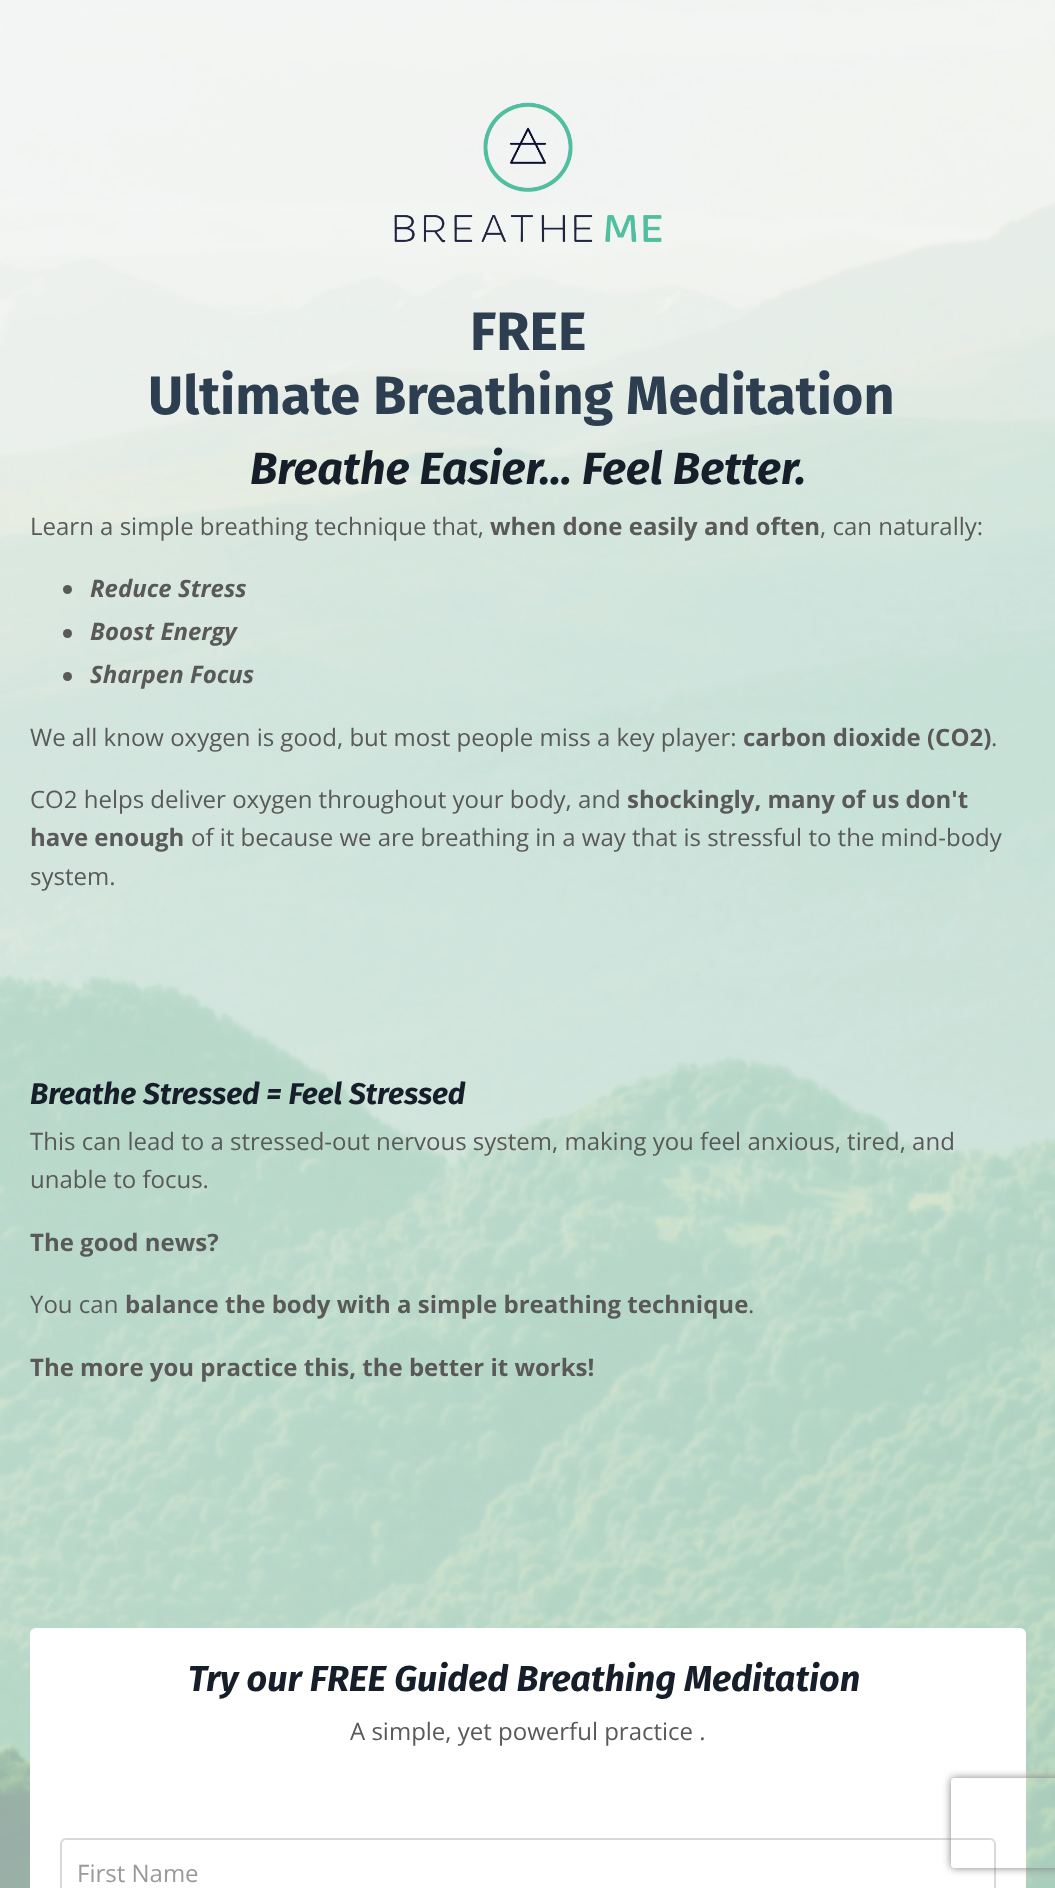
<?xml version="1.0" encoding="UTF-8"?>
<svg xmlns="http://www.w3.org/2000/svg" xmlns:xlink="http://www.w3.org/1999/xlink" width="1055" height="1888">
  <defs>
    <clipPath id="clip1"><path d="M 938 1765 h 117 v 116 h -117 z m 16 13 h 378 c 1.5 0 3 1.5 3 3 v 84 c 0 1.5 -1.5 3 -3 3 h -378 c -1.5 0 -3 -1.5 -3 -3 v -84 c 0 -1.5 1.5 -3 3 -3 z" clip-rule="evenodd" /></clipPath>
  </defs>
  <rect width="100%" height="100%" fill="#ffffff" />
  <image x="0" y="0" width="1055" height="1888" xlink:href="image1.png" />
  <image x="394" y="102" width="268" height="141" xlink:href="image2.png" />
  <circle cx="67.5" cy="589.5" r="4.5" fill="#595959" />
  <circle cx="67.5" cy="633.5" r="4.5" fill="#595959" />
  <circle cx="67.5" cy="676.5" r="4.5" fill="#595959" />
  <rect x="30" y="1628" width="996" height="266" rx="6" fill="#ffffff" />
  <rect x="61" y="1839" width="934" height="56" rx="5" fill="none" stroke="#d9d9d9" stroke-width="2" />
  <g clip-path="url(#clip1)">
    <rect x="951" y="1778" width="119" height="90" rx="3" fill="#808080" filter="blur(4px)" />
  </g>
  <text x="470" y="350" style="font-family: Fira Sans; font-size: 54px; font-weight: bold; fill: #2c3e50">FREE</text>
  <text x="148" y="414" style="font-family: Fira Sans; font-size: 54px; font-weight: bold; fill: #2c3e50">Ultimate Breathing Meditation</text>
  <text x="250" y="484" style="font-family: Fira Sans; font-size: 45px; font-weight: bold; font-style: italic; fill: #161e2a">Breathe Easier... Feel Better.</text>
  <text x="30" y="535" style="font-family: Open Sans; font-size: 24px; fill: #595959">Learn a simple breathing technique that,</text>
  <text x="490" y="535" style="font-family: Open Sans; font-size: 24px; font-weight: bold; fill: #595959">when done easily and often</text>
  <text x="820" y="535" style="font-family: Open Sans; font-size: 24px; fill: #595959">, can naturally:</text>
  <text x="90" y="597" style="font-family: Open Sans; font-size: 24px; font-weight: bold; font-style: italic; fill: #595959">Reduce Stress</text>
  <text x="90" y="640" style="font-family: Open Sans; font-size: 24px; font-weight: bold; font-style: italic; fill: #595959">Boost Energy</text>
  <text x="90" y="683" style="font-family: Open Sans; font-size: 24px; font-weight: bold; font-style: italic; fill: #595959">Sharpen Focus</text>
  <text x="30" y="746" style="font-family: Open Sans; font-size: 24px; fill: #595959">We all know oxygen is good, but most people miss a key player:</text>
  <text x="743" y="746" style="font-family: Open Sans; font-size: 24px; font-weight: bold; fill: #595959">carbon dioxide (CO2)</text>
  <text x="991" y="746" style="font-family: Open Sans; font-size: 24px; fill: #595959">.</text>
  <text x="30" y="808" style="font-family: Open Sans; font-size: 24px; fill: #595959">CO2 helps deliver oxygen throughout your body, and</text>
  <text x="627" y="808" style="font-family: Open Sans; font-size: 24px; font-weight: bold; fill: #595959">shockingly, many of us don't</text>
  <text x="30" y="846" style="font-family: Open Sans; font-size: 24px; font-weight: bold; fill: #595959">have enough</text>
  <text x="191" y="846" style="font-family: Open Sans; font-size: 24px; fill: #595959">of it because we are breathing in a way that is stressful to the mind-body</text>
  <text x="30" y="885" style="font-family: Open Sans; font-size: 24px; fill: #595959">system.</text>
  <text x="30" y="1104" style="font-family: Fira Sans; font-size: 30px; font-weight: bold; font-style: italic; fill: #161e2a">Breathe Stressed = Feel Stressed</text>
  <text x="30" y="1150" style="font-family: Open Sans; font-size: 24px; fill: #595959">This can lead to a stressed-out nervous system, making you feel anxious, tired, and</text>
  <text x="30" y="1188" style="font-family: Open Sans; font-size: 24px; fill: #595959">unable to focus.</text>
  <text x="30" y="1251" style="font-family: Open Sans; font-size: 24px; font-weight: bold; fill: #595959">The good news?</text>
  <text x="30" y="1313" style="font-family: Open Sans; font-size: 24px; fill: #595959">You can</text>
  <text x="125" y="1313" style="font-family: Open Sans; font-size: 24px; font-weight: bold; fill: #595959">balance the body with a simple breathing technique</text>
  <text x="748" y="1313" style="font-family: Open Sans; font-size: 24px; fill: #595959">.</text>
  <text x="30" y="1376" style="font-family: Open Sans; font-size: 24px; font-weight: bold; fill: #595959">The more you practice this, the better it works!</text>
  <text x="188" y="1691" style="font-family: Fira Sans; font-size: 36px; font-weight: bold; font-style: italic; fill: #161e2a">Try our FREE Guided Breathing Meditation</text>
  <text x="350" y="1740" style="font-family: Open Sans; font-size: 24px; fill: #595959">A simple, yet powerful practice .</text>
  <text x="77" y="1882" style="font-family: Open Sans; font-size: 24px; fill: #999999">First Name</text>
</svg>
